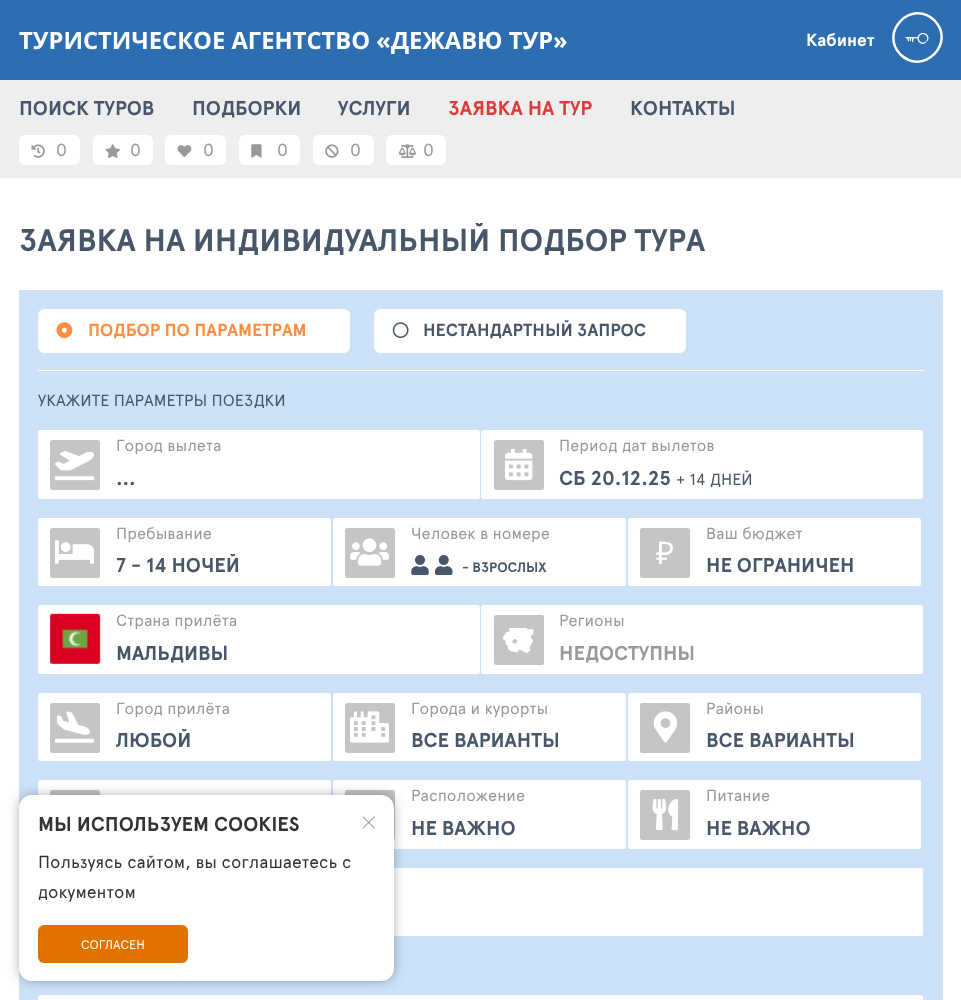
<?xml version="1.0" encoding="UTF-8"?>
<svg xmlns="http://www.w3.org/2000/svg" xmlns:xlink="http://www.w3.org/1999/xlink" width="961" height="1000">
  <rect width="100%" height="100%" fill="#ffffff" />
  <rect width="961" height="80" fill="#2d6eb3" />
  <image x="905" y="32" width="24" height="12" xlink:href="image1.png" />
  <path d="M 934.5 20.5 c 22 22.5 -11.5 56 -34 34 c -22 -22.5 11.5 -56 34 -34 z" fill="none" stroke="#ffffff" stroke-width="2.5" />
  <rect y="80" width="961" height="98" fill="#eeeeee" />
  <rect x="19" y="135" width="61" height="30" rx="6" fill="#ffffff" />
  <image x="31" y="144" width="14" height="14" xlink:href="image2.png" />
  <rect x="93" y="135" width="60" height="30" rx="6" fill="#ffffff" />
  <image x="105" y="144" width="15" height="14" xlink:href="image3.png" />
  <rect x="165" y="135" width="61" height="30" rx="6" fill="#ffffff" />
  <image x="177" y="145" width="15" height="12" xlink:href="image4.png" />
  <rect x="239" y="135" width="61" height="30" rx="6" fill="#ffffff" />
  <image x="251" y="144" width="11" height="14" xlink:href="image5.png" />
  <rect x="313" y="135" width="61" height="30" rx="6" fill="#ffffff" />
  <image x="325" y="144" width="14" height="14" xlink:href="image6.png" />
  <rect x="386" y="135" width="60" height="30" rx="6" fill="#ffffff" />
  <image x="398" y="144" width="18" height="14" xlink:href="image7.png" />
  <rect x="19" y="290" width="924" height="710" fill="#cde2f8" />
  <rect x="38" y="309" width="312" height="44" rx="6" fill="#ffffff" />
  <image x="56" y="322" width="17" height="16" xlink:href="image8.png" />
  <rect x="374" y="309" width="312" height="44" rx="6" fill="#ffffff" />
  <image x="392" y="322" width="17" height="16" xlink:href="image9.png" />
  <rect x="38" y="370" width="886" height="1" fill="#ffffff" />
  <rect x="38" y="430" width="442" height="69" rx="2.5" fill="#ffffff" />
  <rect x="50" y="440" width="50" height="50" rx="2.5" fill="#c5c5c5" />
  <image x="55" y="451" width="40" height="30" xlink:href="image10.png" />
  <rect x="481" y="430" width="442" height="69" rx="2.5" fill="#ffffff" />
  <rect x="494" y="440" width="50" height="50" rx="2.5" fill="#c5c5c5" />
  <image x="505" y="449" width="28" height="32" xlink:href="image11.png" />
  <rect x="38" y="518" width="293" height="68" rx="2.5" fill="#ffffff" />
  <rect x="50" y="528" width="50" height="50" rx="2.5" fill="#c5c5c5" />
  <image x="55" y="540" width="39" height="24" xlink:href="image12.png" />
  <rect x="333" y="518" width="293" height="68" rx="2.5" fill="#ffffff" />
  <rect x="345" y="528" width="50" height="50" rx="2.5" fill="#c5c5c5" />
  <image x="350" y="538" width="39" height="28" xlink:href="image13.png" />
  <image x="411" y="555" width="18" height="20" xlink:href="image14.png" />
  <image x="435" y="555" width="18" height="20" xlink:href="image15.png" />
  <rect x="628" y="518" width="293" height="68" rx="2.5" fill="#ffffff" />
  <rect x="640" y="528" width="50" height="50" rx="2.5" fill="#c5c5c5" />
  <rect x="38" y="605" width="442" height="69" rx="2.5" fill="#ffffff" />
  <image x="49" y="613" width="52" height="51" xlink:href="image16.png" />
  <rect x="481" y="605" width="442" height="69" rx="2.5" fill="#ffffff" />
  <rect x="494" y="615" width="50" height="50" rx="2.5" fill="#c5c5c5" />
  <image x="503" y="628" width="31" height="25" xlink:href="image17.png" />
  <rect x="38" y="693" width="293" height="68" rx="2.5" fill="#ffffff" />
  <rect x="50" y="703" width="50" height="50" rx="2.5" fill="#c5c5c5" />
  <image x="55" y="711" width="39" height="32" xlink:href="image18.png" />
  <rect x="333" y="693" width="293" height="68" rx="2.5" fill="#ffffff" />
  <rect x="345" y="703" width="50" height="50" rx="2.5" fill="#c5c5c5" />
  <image x="350" y="711" width="39" height="32" xlink:href="image19.png" />
  <rect x="628" y="693" width="293" height="68" rx="2.5" fill="#ffffff" />
  <rect x="640" y="703" width="50" height="50" rx="2.5" fill="#c5c5c5" />
  <image x="653" y="711" width="25" height="32" xlink:href="image20.png" />
  <rect x="38" y="780" width="293" height="69" rx="2.5" fill="#ffffff" />
  <rect x="50" y="790" width="50" height="50" rx="2.5" fill="#c5c5c5" />
  <rect x="333" y="780" width="293" height="69" rx="2.5" fill="#ffffff" />
  <rect x="345" y="790" width="50" height="50" rx="2.5" fill="#c5c5c5" />
  <rect x="628" y="780" width="293" height="69" rx="2.5" fill="#ffffff" />
  <rect x="640" y="790" width="50" height="50" rx="2.5" fill="#c5c5c5" />
  <image x="652" y="799" width="26" height="32" xlink:href="image21.png" />
  <rect x="38" y="868" width="885" height="68" rx="2.5" fill="#ffffff" />
  <rect x="38" y="995" width="885" height="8" rx="2.5" fill="#ffffff" />
  <rect x="19" y="795" width="375" height="186" rx="13" fill="#000000" fill-opacity="0.3" filter="blur(6px)" />
  <rect x="19" y="795" width="375" height="186" rx="13" fill="#ffffff" />
  <image x="363" y="816" width="12" height="13" xlink:href="image22.png" />
  <rect x="38" y="925" width="150" height="38" rx="6" fill="#e27200" />
  <text x="19" y="49" style="font-family: Open Sans; font-size: 23.75px; font-weight: bold; fill: #ffffff">ТУРИСТИЧЕСКОЕ АГЕНТСТВО «ДЕЖАВЮ ТУР»</text>
  <text x="806" y="46" style="font-family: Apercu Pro; font-size: 17.5px; font-weight: bold; fill: #ffffff">Кабинет</text>
  <text x="19" y="115" style="font-family: Apercu Pro; font-size: 20px; font-weight: bold; fill: #475669">ПОИСК ТУРОВ</text>
  <text x="192" y="115" style="font-family: Apercu Pro; font-size: 20px; font-weight: bold; fill: #475669">ПОДБОРКИ</text>
  <text x="338" y="115" style="font-family: Apercu Pro; font-size: 20px; font-weight: bold; fill: #475669">УСЛУГИ</text>
  <text x="448" y="115" style="font-family: Apercu Pro; font-size: 20px; font-weight: bold; fill: #e03a3a">ЗАЯВКА НА ТУР</text>
  <text x="630" y="115" style="font-family: Apercu Pro; font-size: 20px; font-weight: bold; fill: #475669">КОНТАКТЫ</text>
  <text x="56" y="156" style="font-family: Apercu Pro; font-size: 17.5px; fill: #999999">0</text>
  <text x="130" y="156" style="font-family: Apercu Pro; font-size: 17.5px; fill: #999999">0</text>
  <text x="203" y="156" style="font-family: Apercu Pro; font-size: 17.5px; fill: #999999">0</text>
  <text x="277" y="156" style="font-family: Apercu Pro; font-size: 17.5px; fill: #999999">0</text>
  <text x="350" y="156" style="font-family: Apercu Pro; font-size: 17.5px; fill: #999999">0</text>
  <text x="423" y="156" style="font-family: Apercu Pro; font-size: 17.5px; fill: #999999">0</text>
  <text x="19" y="251" style="font-family: Apercu Pro; font-size: 31.25px; font-weight: bold; fill: #475669">ЗАЯВКА НА ИНДИВИДУАЛЬНЫЙ ПОДБОР ТУРА</text>
  <text x="88" y="336" style="font-family: Apercu Pro; font-size: 17.5px; font-weight: bold; fill: #ff8e41">ПОДБОР ПО ПАРАМЕТРАМ</text>
  <text x="423" y="336" style="font-family: Apercu Pro; font-size: 17.5px; font-weight: bold; fill: #475669">НЕСТАНДАРТНЫЙ ЗАПРОС</text>
  <text x="38" y="406" style="font-family: Apercu Pro; font-size: 16.25px; fill: #475669">УКАЖИТЕ ПАРАМЕТРЫ ПОЕЗДКИ</text>
  <text x="116" y="451" style="font-family: Apercu Pro; font-size: 16.25px; fill: #999999">Город вылета</text>
  <text x="116" y="485" style="font-family: Apercu Pro; font-size: 20px; font-weight: bold; fill: #475669">...</text>
  <text x="559" y="451" style="font-family: Apercu Pro; font-size: 16.25px; fill: #999999">Период дат вылетов</text>
  <text x="559" y="485" style="font-family: Apercu Pro; font-size: 20px; font-weight: bold; fill: #475669">СБ 20.12.25</text>
  <text x="676" y="485" style="font-family: Apercu Pro; font-size: 16.25px; fill: #475669">+ 14 ДНЕЙ</text>
  <text x="116" y="539" style="font-family: Apercu Pro; font-size: 16.25px; fill: #999999">Пребывание</text>
  <text x="116" y="572" style="font-family: Apercu Pro; font-size: 20px; font-weight: bold; fill: #475669">7 - 14 НОЧЕЙ</text>
  <text x="411" y="539" style="font-family: Apercu Pro; font-size: 16.25px; fill: #999999">Человек в номере</text>
  <text x="462" y="572" style="font-family: Apercu Pro; font-size: 13.75px; font-weight: bold; fill: #475669">- ВЗРОСЛЫХ</text>
  <text x="656" y="564" style="font-family: Noto Sans; font-size: 31.25px; fill: #ffffff">₽</text>
  <text x="706" y="539" style="font-family: Apercu Pro; font-size: 16.25px; fill: #999999">Ваш бюджет</text>
  <text x="706" y="572" style="font-family: Apercu Pro; font-size: 20px; font-weight: bold; fill: #475669">НЕ ОГРАНИЧЕН</text>
  <text x="116" y="626" style="font-family: Apercu Pro; font-size: 16.25px; fill: #999999">Страна прилёта</text>
  <text x="116" y="660" style="font-family: Apercu Pro; font-size: 20px; font-weight: bold; fill: #475669">МАЛЬДИВЫ</text>
  <text x="559" y="626" style="font-family: Apercu Pro; font-size: 16.25px; fill: #999999">Регионы</text>
  <text x="559" y="660" style="font-family: Apercu Pro; font-size: 20px; font-weight: bold; fill: #999999">НЕДОСТУПНЫ</text>
  <text x="116" y="714" style="font-family: Apercu Pro; font-size: 16.25px; fill: #999999">Город прилёта</text>
  <text x="116" y="747" style="font-family: Apercu Pro; font-size: 20px; font-weight: bold; fill: #475669">ЛЮБОЙ</text>
  <text x="411" y="714" style="font-family: Apercu Pro; font-size: 16.25px; fill: #999999">Города и курорты</text>
  <text x="411" y="747" style="font-family: Apercu Pro; font-size: 20px; font-weight: bold; fill: #475669">ВСЕ ВАРИАНТЫ</text>
  <text x="706" y="714" style="font-family: Apercu Pro; font-size: 16.25px; fill: #999999">Районы</text>
  <text x="706" y="747" style="font-family: Apercu Pro; font-size: 20px; font-weight: bold; fill: #475669">ВСЕ ВАРИАНТЫ</text>
  <text x="411" y="801" style="font-family: Apercu Pro; font-size: 16.25px; fill: #999999">Расположение</text>
  <text x="411" y="835" style="font-family: Apercu Pro; font-size: 20px; font-weight: bold; fill: #475669">НЕ ВАЖНО</text>
  <text x="706" y="801" style="font-family: Apercu Pro; font-size: 16.25px; fill: #999999">Питание</text>
  <text x="706" y="835" style="font-family: Apercu Pro; font-size: 20px; font-weight: bold; fill: #475669">НЕ ВАЖНО</text>
  <text x="38" y="831" style="font-family: Apercu Pro; font-size: 20px; font-weight: bold; fill: #333333">МЫ ИСПОЛЬЗУЕМ COOKIES</text>
  <text x="38" y="868" style="font-family: Apercu Pro; font-size: 17.5px; fill: #333333">Пользуясь сайтом, вы соглашаетесь с</text>
  <text x="38" y="898" style="font-family: Apercu Pro; font-size: 17.5px; fill: #333333">документом</text>
  <text x="81" y="949" style="font-family: Apercu Pro; font-size: 12.5px; fill: #ffffff">СОГЛАСЕН</text>
</svg>
